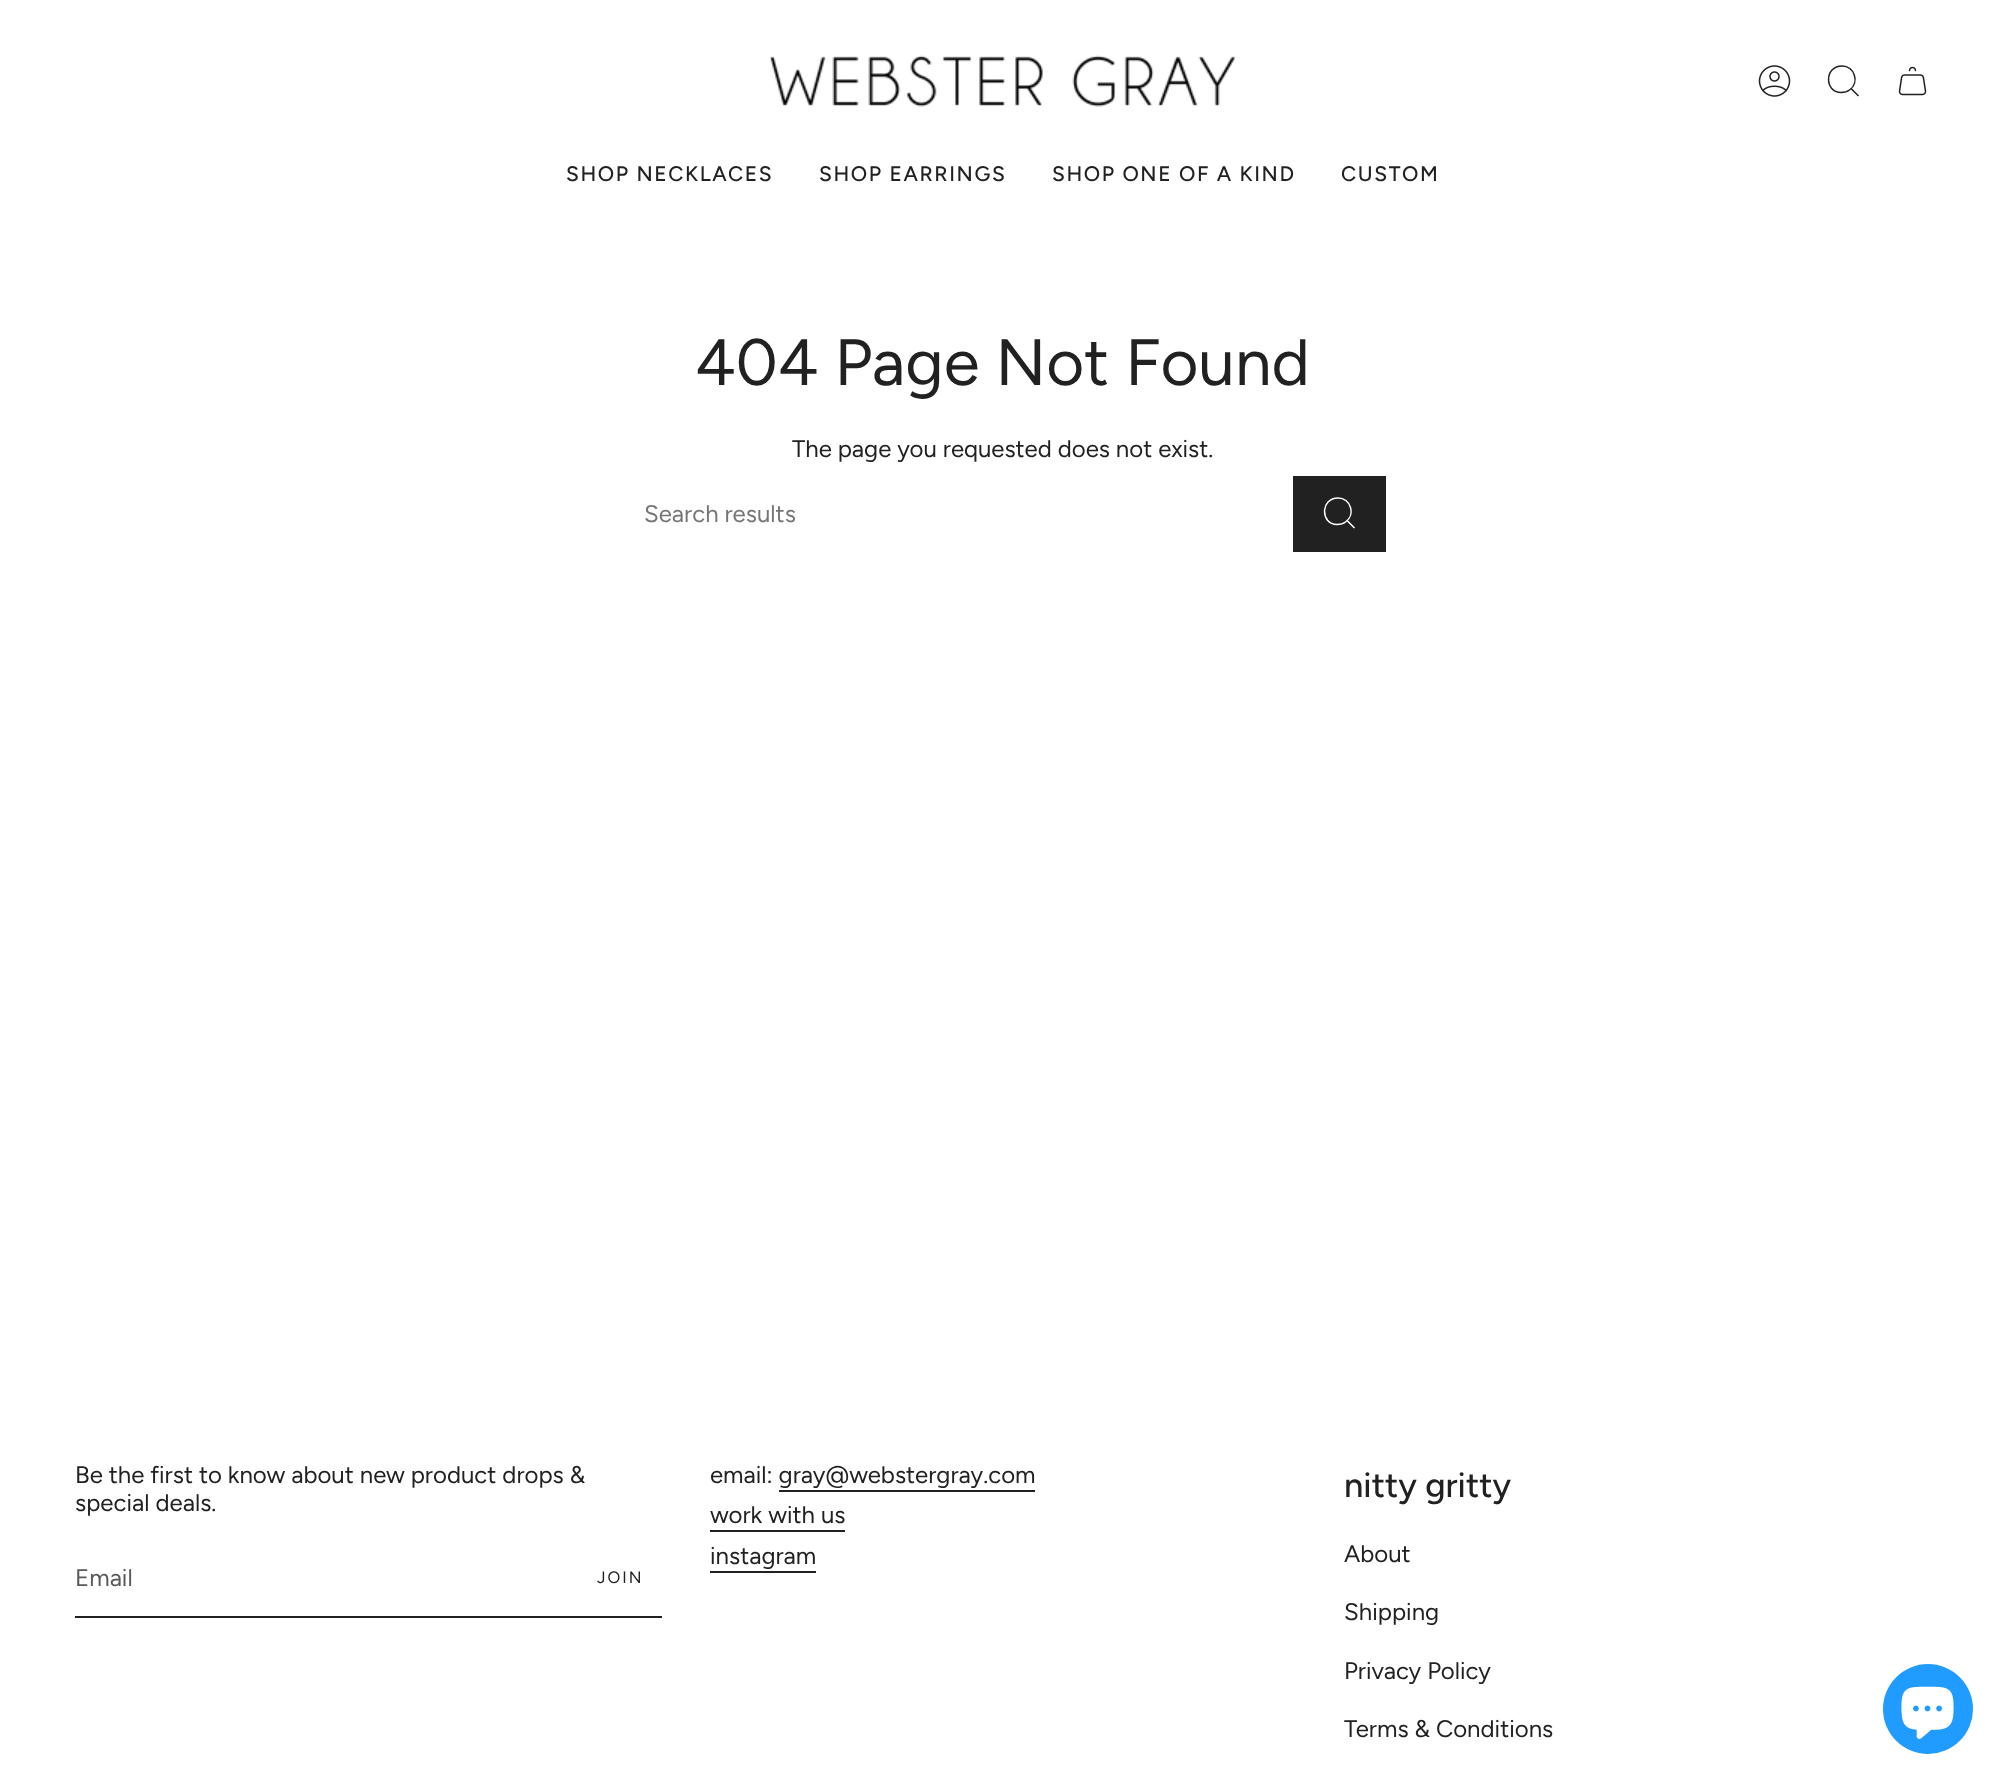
<?xml version="1.0" encoding="UTF-8"?>
<svg xmlns="http://www.w3.org/2000/svg" xmlns:xlink="http://www.w3.org/1999/xlink" width="2005" height="1784">
  <rect width="100%" height="100%" fill="#ffffff" />
  <image x="769" y="55" width="467" height="52" xlink:href="image1.png" />
  <image x="1758" y="65" width="33" height="32" xlink:href="image2.png" />
  <path d="M 1842 66 c 12.5 0 18 16.5 7.5 24 c -2.5 2 -5.5 2.5 -8.5 2.5 c -17 -0.5 -16.5 -26.5 1 -26.5 z m 9 22.5 l 7.5 7.5" fill="none" stroke="#212121" stroke-width="1.5" />
  <image x="1898" y="66" width="29" height="30" xlink:href="image3.png" />
  <rect x="1293" y="476" width="93" height="76" fill="#212121" />
  <path d="M 1338 498 c 12.5 0 18 16.5 7.5 24 c -2.5 2 -5.5 2.5 -8.5 2.5 c -17 -0.5 -16.5 -26.5 1 -26.5 z m 9 22.5 l 7.5 7.5" fill="none" stroke="#ffffff" stroke-width="1.5" />
  <rect x="75" y="1616" width="587" height="2" fill="#212121" />
  <rect x="779" y="1490" width="256" height="2" fill="#212121" />
  <rect x="710" y="1530" width="135" height="2" fill="#212121" />
  <rect x="710" y="1571" width="106" height="2" fill="#212121" />
  <circle cx="1928" cy="1709" r="45" fill="#209bff" />
  <image x="1901" y="1686" width="53" height="53" xlink:href="image4.png" />
  <text x="566" y="181" style="font-family: Figtree; font-size: 21px; font-weight: 500; letter-spacing: 1.6px; fill: #212121">SHOP NECKLACES</text>
  <text x="819" y="181" style="font-family: Figtree; font-size: 21px; font-weight: 500; letter-spacing: 1.6px; fill: #212121">SHOP EARRINGS</text>
  <text x="1052" y="181" style="font-family: Figtree; font-size: 21px; font-weight: 500; letter-spacing: 1.6px; fill: #212121">SHOP ONE OF A KIND</text>
  <text x="1341" y="181" style="font-family: Figtree; font-size: 21px; font-weight: 500; letter-spacing: 1.6px; fill: #212121">CUSTOM</text>
  <text x="695" y="385" style="font-family: Figtree; font-size: 65.5px; fill: #212121">404 Page Not Found</text>
  <text x="792" y="457" style="font-family: Figtree; font-size: 24px; fill: #212121">The page you requested does not exist.</text>
  <text x="644" y="522" style="font-family: Figtree; font-size: 24px; fill: #757575">Search results</text>
  <text x="75" y="1483" style="font-family: Figtree; font-size: 24px; fill: #212121">Be the first to know about new product drops &amp;</text>
  <text x="75" y="1511" style="font-family: Figtree; font-size: 24px; fill: #212121">special deals.</text>
  <text x="75" y="1586" style="font-family: Figtree; font-size: 24px; fill: #595959">Email</text>
  <text x="597" y="1583" style="font-family: Figtree; font-size: 16.5px; letter-spacing: 2px; fill: #212121">JOIN</text>
  <text x="710" y="1483" style="font-family: Figtree; font-size: 24px; fill: #212121">email: gray@webstergray.com</text>
  <text x="710" y="1523" style="font-family: Figtree; font-size: 24px; fill: #212121">work with us</text>
  <text x="710" y="1564" style="font-family: Figtree; font-size: 24px; fill: #212121">instagram</text>
  <text x="1344" y="1497" style="font-family: Figtree; font-size: 34.5px; font-weight: 500; fill: #212121">nitty gritty</text>
  <text x="1344" y="1562" style="font-family: Figtree; font-size: 24px; fill: #212121">About</text>
  <text x="1344" y="1620" style="font-family: Figtree; font-size: 24px; fill: #212121">Shipping</text>
  <text x="1344" y="1679" style="font-family: Figtree; font-size: 24px; fill: #212121">Privacy Policy</text>
  <text x="1344" y="1737" style="font-family: Figtree; font-size: 24px; fill: #212121">Terms &amp; Conditions</text>
</svg>
